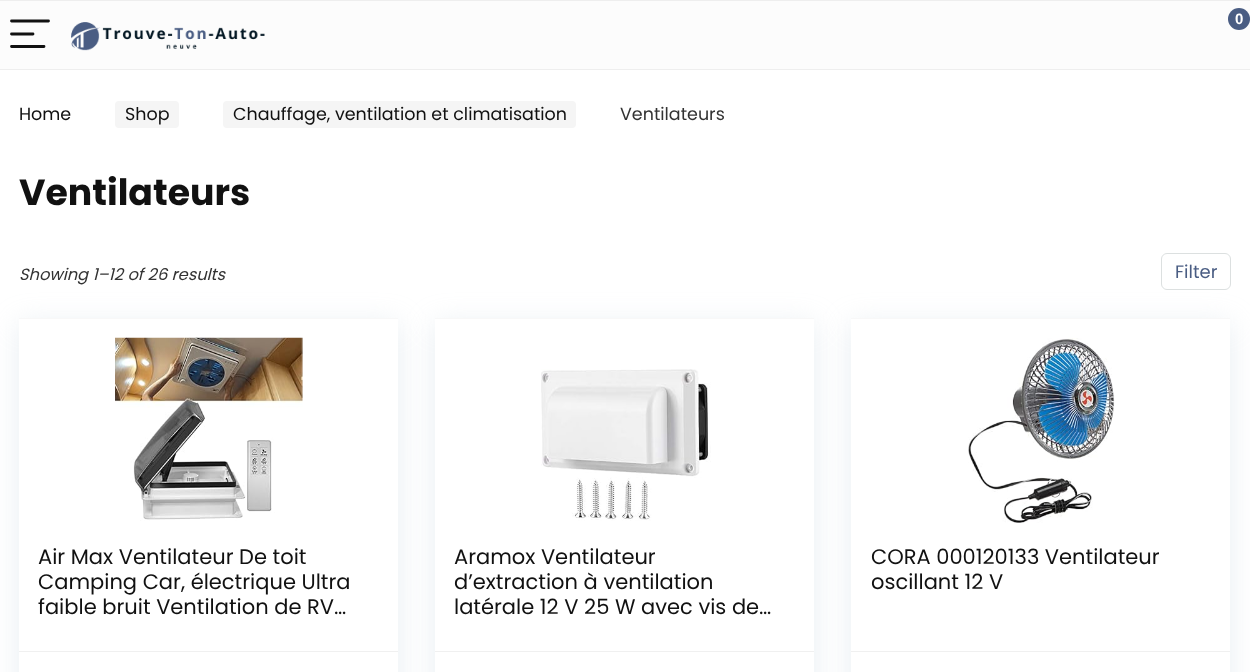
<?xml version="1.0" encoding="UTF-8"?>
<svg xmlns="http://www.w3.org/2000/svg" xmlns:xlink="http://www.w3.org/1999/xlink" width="1250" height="672">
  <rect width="100%" height="100%" fill="#ffffff" />
  <rect y="1" width="1250" height="68" fill="#fcfcfc" />
  <rect width="1250" height="1" fill="#eeeeee" />
  <rect y="69" width="1250" height="1" fill="#eeeeee" />
  <path d="M 11.5 21 h 37 m -37 13 h 21.5 m -21.5 12.5 h 32.5" fill="none" stroke="#111111" stroke-width="2.8" stroke-linecap="round" />
  <image x="71" y="22" width="194" height="29" xlink:href="image1.png" />
  <circle cx="1239" cy="19" r="11" fill="#4a5d83" />
  <rect x="115" y="101" width="64" height="27" rx="4" fill="#f5f5f5" />
  <rect x="223" y="101" width="353" height="27" rx="4" fill="#f5f5f5" />
  <rect x="1161.5" y="253.5" width="69" height="36" rx="5.5" fill="none" stroke="#dce0e0" />
  <rect x="19" y="324" width="379" height="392" fill="#bccfdb" fill-opacity="0.35" filter="blur(14.5px)" />
  <rect x="19" y="319" width="379" height="353" fill="#ffffff" />
  <rect x="19" y="318" width="379" height="1" fill="#f8f8f8" />
  <image x="115" y="337" width="188" height="184" xlink:href="image2.png" />
  <rect x="19" y="651" width="379" height="1" fill="#f0f0f0" />
  <rect x="435" y="324" width="379" height="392" fill="#bccfdb" fill-opacity="0.35" filter="blur(14.5px)" />
  <rect x="435" y="319" width="379" height="353" fill="#ffffff" />
  <rect x="435" y="318" width="379" height="1" fill="#f8f8f8" />
  <image x="541" y="369" width="170" height="152" xlink:href="image3.png" />
  <rect x="435" y="651" width="379" height="1" fill="#f0f0f0" />
  <rect x="851" y="324" width="379" height="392" fill="#bccfdb" fill-opacity="0.35" filter="blur(14.5px)" />
  <rect x="851" y="319" width="379" height="353" fill="#ffffff" />
  <rect x="851" y="318" width="379" height="1" fill="#f8f8f8" />
  <image x="968" y="338" width="147" height="185" xlink:href="image4.png" />
  <rect x="851" y="651" width="379" height="1" fill="#f0f0f0" />
  <text x="1235" y="24" style="font-family: Liberation Sans; font-size: 15px; font-weight: bold; fill: #ffffff">0</text>
  <text x="19" y="120" style="font-family: Poppins; font-size: 17.5px; fill: #111111">Home</text>
  <text x="125" y="120" style="font-family: Poppins; font-size: 17.5px; fill: #111111">Shop</text>
  <text x="233" y="120" style="font-family: Poppins; font-size: 17.5px; fill: #111111">Chauffage, ventilation et climatisation</text>
  <text x="620" y="120" style="font-family: Poppins; font-size: 17.5px; fill: #333333">Ventilateurs</text>
  <text x="19" y="205" style="font-family: Poppins; font-size: 36.25px; font-weight: bold; fill: #111111">Ventilateurs</text>
  <text x="19" y="280" style="font-family: Poppins; font-size: 16.25px; font-style: italic; fill: #333333">Showing 1–12 of 26 results</text>
  <text x="1175" y="278" style="font-family: Poppins; font-size: 18px; fill: #4a5d83">Filter</text>
  <text x="38" y="564" style="font-family: Poppins; font-size: 21px; fill: #111111">Air Max Ventilateur De toit</text>
  <text x="38" y="589" style="font-family: Poppins; font-size: 21px; fill: #111111">Camping Car, électrique Ultra</text>
  <text x="38" y="614" style="font-family: Poppins; font-size: 21px; fill: #111111">faible bruit Ventilation de RV…</text>
  <text x="454" y="564" style="font-family: Poppins; font-size: 21px; fill: #111111">Aramox Ventilateur</text>
  <text x="454" y="589" style="font-family: Poppins; font-size: 21px; fill: #111111">d’extraction à ventilation</text>
  <text x="454" y="614" style="font-family: Poppins; font-size: 21px; fill: #111111">latérale 12 V 25 W avec vis de…</text>
  <text x="871" y="564" style="font-family: Poppins; font-size: 21px; fill: #111111">CORA 000120133 Ventilateur</text>
  <text x="871" y="589" style="font-family: Poppins; font-size: 21px; fill: #111111">oscillant 12 V</text>
</svg>
